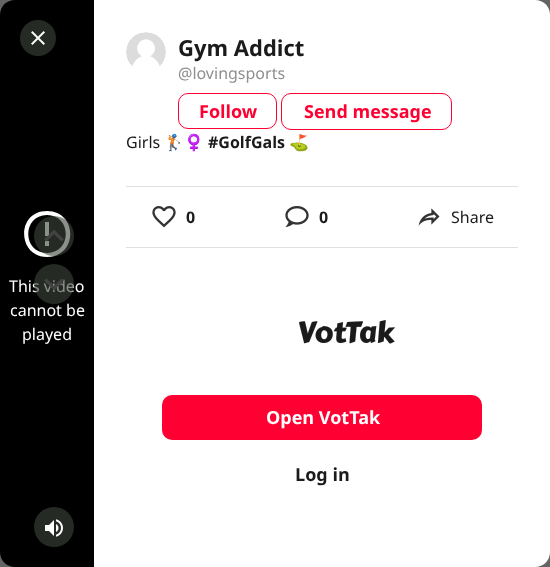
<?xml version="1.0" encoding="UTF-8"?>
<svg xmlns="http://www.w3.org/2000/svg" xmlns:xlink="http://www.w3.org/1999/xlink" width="550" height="567">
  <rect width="100%" height="100%" fill="#646464" />
  <path d="M 15 0 h 79 v 567 h -79 c -8.5 0 -15 -6.5 -15 -15 v -537 c 0 -8.5 6.5 -15 15 -15 z" fill="#000000" />
  <circle cx="38" cy="38" r="18" fill="#252a25" />
  <image x="31" y="31" width="14" height="14" xlink:href="image1.png" />
  <path d="M 94 0 h 441 c 8.5 0 15 6.5 15 15 v 537 c 0 8.5 -6.5 15 -15 15 h -441 z" fill="#ffffff" />
  <image x="126" y="32" width="40" height="35" xlink:href="image2.png" />
  <rect x="178.5" y="93.5" width="98" height="35" rx="9.5" fill="none" stroke="#ff0032" />
  <rect x="281.5" y="93.5" width="170" height="36" rx="9.5" fill="none" stroke="#ff0032" />
  <rect x="126" y="186" width="392" height="1" fill="#e0e0e0" />
  <image x="152" y="206" width="24" height="22" xlink:href="image3.png" />
  <image x="285" y="206" width="24" height="21" xlink:href="image4.png" />
  <image x="418" y="208" width="22" height="18" xlink:href="image5.png" />
  <rect x="126" y="247" width="392" height="1" fill="#e0e0e0" />
  <image x="299" y="320" width="96" height="24" xlink:href="image6.png" />
  <rect x="162" y="395" width="320" height="45" rx="10" fill="#ff0032" />
  <path d="M 45 241 h 4 v 5 h -4 z m 0 -19 h 4 v 14 h -4 z m 2 -11 c -31 0 -30 46 0 46 c 31 0 31 -46 0 -46 z m 0 42 c -25 0 -25 -38 0 -38 c 25 0 25 38 0 38 z" fill="#ffffff" />
  <circle cx="54" cy="236" r="20" fill="#3d463d" fill-opacity="0.6" />
  <path d="M 46.5 241.5 l 7.5 -7.5 l 7.5 7.5 l 2.5 -2 l -10 -10 l -10 10 z" fill="#424242" />
  <circle cx="54" cy="527" r="20" fill="#252a25" />
  <image x="45" y="519" width="18" height="18" xlink:href="image7.png" />
  <text x="178" y="56" style="font-family: Noto Sans; font-size: 22px; font-weight: bold; fill: #1b1b1b">Gym Addict</text>
  <text x="178" y="79" style="font-family: Noto Sans; font-size: 16px; fill: #8f8f8f">@lovingsports</text>
  <text x="199" y="118" style="font-family: Noto Sans; font-size: 18px; font-weight: bold; fill: #ff0032">Follow</text>
  <text x="304" y="118" style="font-family: Noto Sans; font-size: 18px; font-weight: bold; fill: #ff0032">Send message</text>
  <text x="126" y="148" style="font-family: Noto Sans; font-size: 16px; fill: #1b1b1b">Girls</text>
  <text x="164" y="148" style="font-family: Noto Color Emoji; font-size: 16px; fill: #1b1b1b">🏌️♀️</text>
  <text x="208" y="148" style="font-family: Noto Sans; font-size: 16px; font-weight: bold; fill: #1b1b1b">#GolfGals</text>
  <text x="289" y="148" style="font-family: Noto Color Emoji; font-size: 16px; fill: #1b1b1b">⛳️</text>
  <text x="186" y="223" style="font-family: Noto Sans; font-size: 16px; font-weight: bold; fill: #1b1b1b">0</text>
  <text x="319" y="223" style="font-family: Noto Sans; font-size: 16px; font-weight: bold; fill: #1b1b1b">0</text>
  <text x="451" y="223" style="font-family: Noto Sans; font-size: 16px; fill: #1b1b1b">Share</text>
  <text x="266" y="424" style="font-family: Noto Sans; font-size: 18px; font-weight: bold; fill: #ffffff">Open VotTak</text>
  <text x="295" y="481" style="font-family: Noto Sans; font-size: 18px; font-weight: bold; fill: #1b1b1b">Log in</text>
  <text x="9" y="292" style="font-family: Noto Sans; font-size: 16px; fill: #ffffff">This video</text>
  <text x="10" y="316" style="font-family: Noto Sans; font-size: 16px; fill: #ffffff">cannot be</text>
  <circle cx="54" cy="284" r="20" fill="#3d463d" fill-opacity="0.6" />
  <path d="M 46.5 278.5 l 7.5 7.5 l 7.5 -7.5 l 2.5 2 l -10 10 l -10 -10 z" fill="#424242" />
  <text x="22" y="340" style="font-family: Noto Sans; font-size: 16px; fill: #ffffff">played</text>
</svg>
